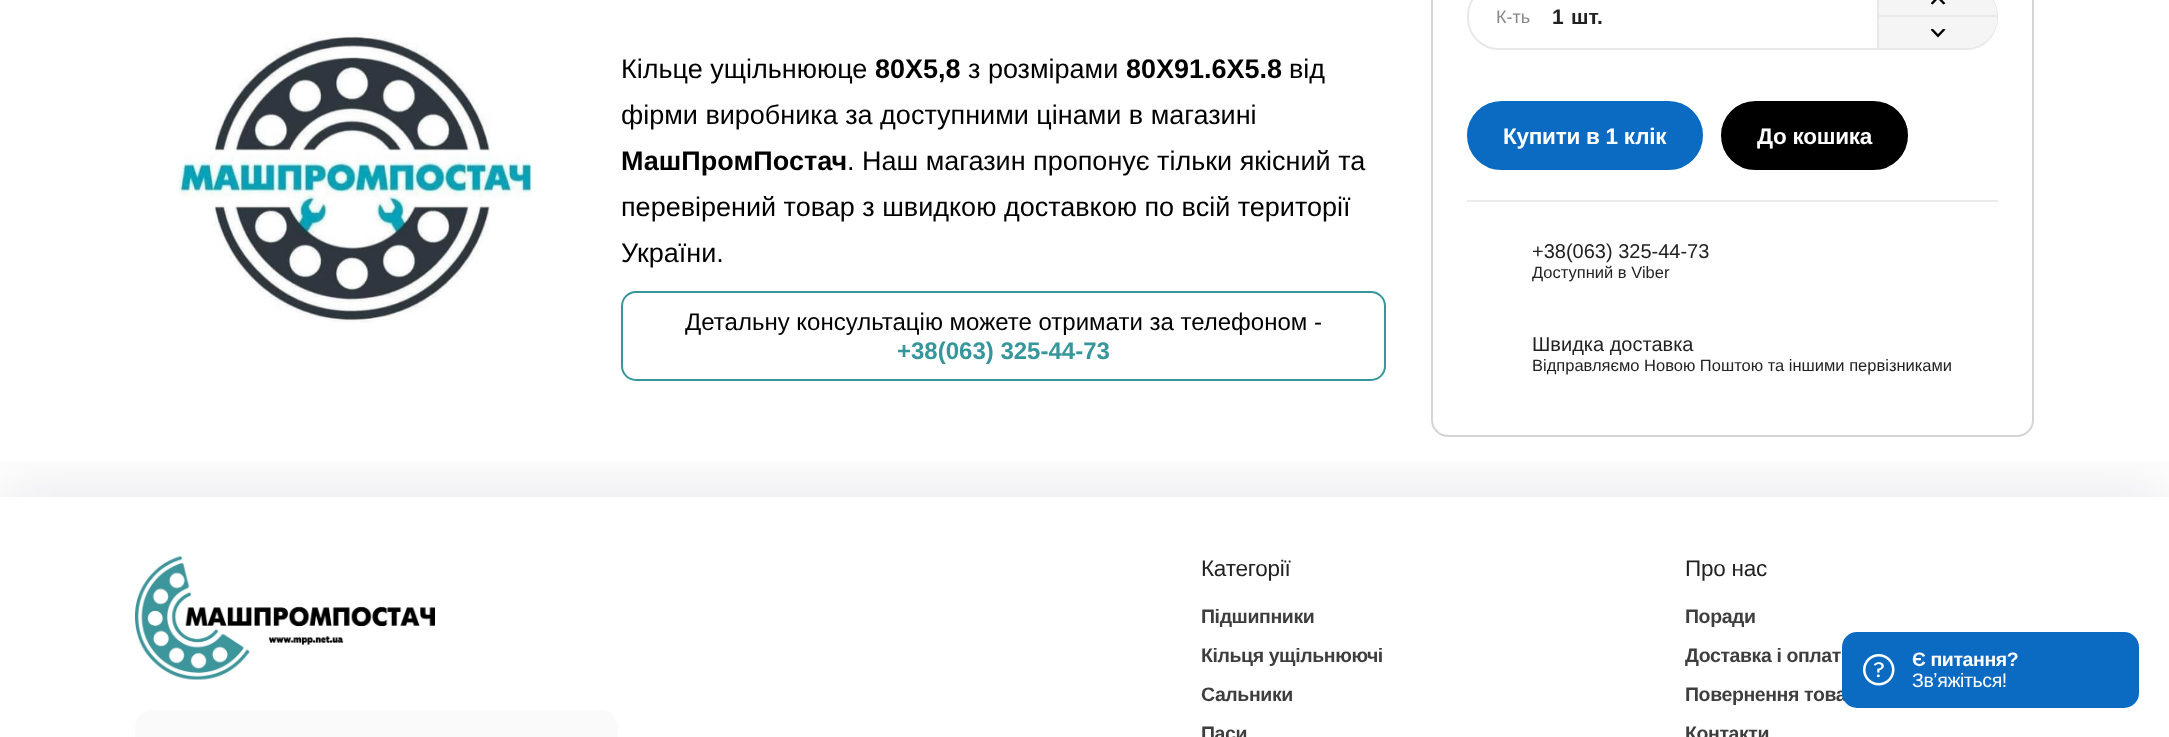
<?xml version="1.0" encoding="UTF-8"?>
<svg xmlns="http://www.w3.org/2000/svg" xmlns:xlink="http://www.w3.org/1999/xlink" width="2169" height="737">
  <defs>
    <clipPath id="clip1"><rect x="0" y="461" width="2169" height="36" /></clipPath>
  </defs>
  <rect width="100%" height="100%" fill="#ffffff" />
  <image x="177" y="33" width="357" height="290" xlink:href="image1.png" />
  <rect x="622" y="292" width="763" height="88" rx="14" fill="none" stroke="#37969c" stroke-width="2" />
  <g clip-path="url(#clip1)">
    <rect y="491" width="2169" height="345" fill="#171b3f" fill-opacity="0.11" filter="blur(33px)" />
  </g>
  <rect x="1432" y="-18" width="601" height="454" rx="16" fill="none" stroke="#d5d5d5" stroke-width="2" />
  <rect x="1468" y="-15" width="529" height="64" rx="31" fill="none" stroke="#e8e8e8" stroke-width="2" />
  <path d="M 1877 -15 h 90 c 16.5 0 30 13.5 30 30 v 2 h -120 z" fill="#f5f5f5" />
  <rect x="1877" y="15" width="120" height="2" fill="#e8e8e8" />
  <rect x="1877" width="2" height="17" fill="#e8e8e8" />
  <image x="1931" y="0" width="15" height="5" xlink:href="image2.png" />
  <path d="M 1877 17 h 120 v 1 c 0 16.5 -13.5 30 -30 30 h -90 z" fill="#f5f5f5" />
  <rect x="1877" y="17" width="2" height="31" fill="#e8e8e8" />
  <image x="1931" y="29" width="15" height="9" xlink:href="image3.png" />
  <rect x="1468" y="102" width="234" height="67" rx="33.5" fill="#0b6ac1" stroke="#0b6ac1" stroke-width="2" />
  <rect x="1722" y="102" width="185" height="67" rx="33.5" fill="#000000" stroke="#000000" stroke-width="2" />
  <rect x="1467" y="200" width="531" height="2" fill="#ebebeb" />
  <image x="135" y="556" width="300" height="124" xlink:href="image4.png" />
  <rect x="135" y="710" width="483" height="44" rx="17" fill="#fafafa" />
  <text x="621" y="78" style="font-family: Liberation Sans; font-size: 27px; fill: #000000">Кільце ущільнююце</text>
  <text x="875" y="78" style="font-family: Liberation Sans; font-size: 27px; font-weight: bold; fill: #000000">80X5,8</text>
  <text x="968" y="78" style="font-family: Liberation Sans; font-size: 27px; fill: #000000">з розмірами</text>
  <text x="1126" y="78" style="font-family: Liberation Sans; font-size: 27px; font-weight: bold; fill: #000000">80X91.6X5.8</text>
  <text x="1289" y="78" style="font-family: Liberation Sans; font-size: 27px; fill: #000000">від</text>
  <text x="621" y="124" style="font-family: Liberation Sans; font-size: 27px; fill: #000000">фірми виробника за доступними цінами в магазині</text>
  <text x="621" y="170" style="font-family: Liberation Sans; font-size: 27px; font-weight: bold; fill: #000000">МашПромПостач</text>
  <text x="847" y="170" style="font-family: Liberation Sans; font-size: 27px; fill: #000000">. Наш магазин пропонує тільки якісний та</text>
  <text x="621" y="216" style="font-family: Liberation Sans; font-size: 27px; fill: #000000">перевірений товар з швидкою доставкою по всій території</text>
  <text x="621" y="262" style="font-family: Liberation Sans; font-size: 27px; fill: #000000">України.</text>
  <text x="685" y="330" style="font-family: Liberation Sans; font-size: 24px; fill: #000000">Детальну консультацію можете отримати за телефоном -</text>
  <text x="897" y="359" style="font-family: Liberation Sans; font-size: 24px; font-weight: bold; fill: #37969c">+38(063) 325-44-73</text>
  <text x="1496" y="23" style="font-family: Liberation Sans; font-size: 18px; fill: #888888">К-ть</text>
  <text x="1552" y="24" style="font-family: Liberation Sans; font-size: 21px; font-weight: bold; fill: #222222">1</text>
  <text x="1571" y="24" style="font-family: Liberation Sans; font-size: 21px; font-weight: bold; fill: #222222">шт.</text>
  <text x="1503" y="144" style="font-family: Liberation Sans; font-size: 22.5px; font-weight: bold; letter-spacing: -0.25px; fill: #ffffff">Купити в 1 клік</text>
  <text x="1757" y="144" style="font-family: Liberation Sans; font-size: 22.5px; font-weight: bold; letter-spacing: -0.25px; fill: #ffffff">До кошика</text>
  <text x="1532" y="258" style="font-family: Liberation Sans; font-size: 20px; fill: #222222">+38(063) 325-44-73</text>
  <text x="1532" y="278" style="font-family: Liberation Sans; font-size: 16.5px; fill: #222222">Доступний в Viber</text>
  <text x="1532" y="351" style="font-family: Liberation Sans; font-size: 20px; fill: #222222">Швидка доставка</text>
  <text x="1532" y="371" style="font-family: Liberation Sans; font-size: 16.5px; fill: #222222">Відправляємо Новою Поштою та іншими первізниками</text>
  <text x="1201" y="576" style="font-family: Liberation Sans; font-size: 22.5px; letter-spacing: -0.25px; fill: #222222">Категорії</text>
  <text x="1201" y="623" style="font-family: Liberation Sans; font-size: 19.5px; font-weight: bold; letter-spacing: -0.4px; fill: #3e3e3e">Підшипники</text>
  <text x="1201" y="662" style="font-family: Liberation Sans; font-size: 19.5px; font-weight: bold; letter-spacing: -0.4px; fill: #3e3e3e">Кільця ущільнюючі</text>
  <text x="1201" y="701" style="font-family: Liberation Sans; font-size: 19.5px; font-weight: bold; letter-spacing: -0.4px; fill: #3e3e3e">Сальники</text>
  <text x="1201" y="740" style="font-family: Liberation Sans; font-size: 19.5px; font-weight: bold; letter-spacing: -0.4px; fill: #3e3e3e">Паси</text>
  <text x="1685" y="576" style="font-family: Liberation Sans; font-size: 22.5px; letter-spacing: -0.25px; fill: #222222">Про нас</text>
  <text x="1685" y="623" style="font-family: Liberation Sans; font-size: 19.5px; font-weight: bold; letter-spacing: -0.4px; fill: #3e3e3e">Поради</text>
  <text x="1685" y="662" style="font-family: Liberation Sans; font-size: 19.5px; font-weight: bold; letter-spacing: -0.4px; fill: #3e3e3e">Доставка і оплат</text>
  <text x="1685" y="701" style="font-family: Liberation Sans; font-size: 19.5px; font-weight: bold; letter-spacing: -0.4px; fill: #3e3e3e">Повернення това</text>
  <text x="1685" y="740" style="font-family: Liberation Sans; font-size: 19.5px; font-weight: bold; letter-spacing: -0.4px; fill: #3e3e3e">Контакти</text>
  <rect x="1842" y="632" width="297" height="76" rx="15" fill="#0b6ac1" />
  <image x="1863" y="654" width="32" height="32" xlink:href="image5.png" />
  <text x="1912" y="666" style="font-family: Liberation Sans; font-size: 19.5px; font-weight: bold; letter-spacing: -0.4px; fill: #ffffff">Є питання?</text>
  <text x="1912" y="687" style="font-family: Liberation Sans; font-size: 19.5px; letter-spacing: -0.4px; fill: #ffffff">Звʼяжіться!</text>
</svg>
